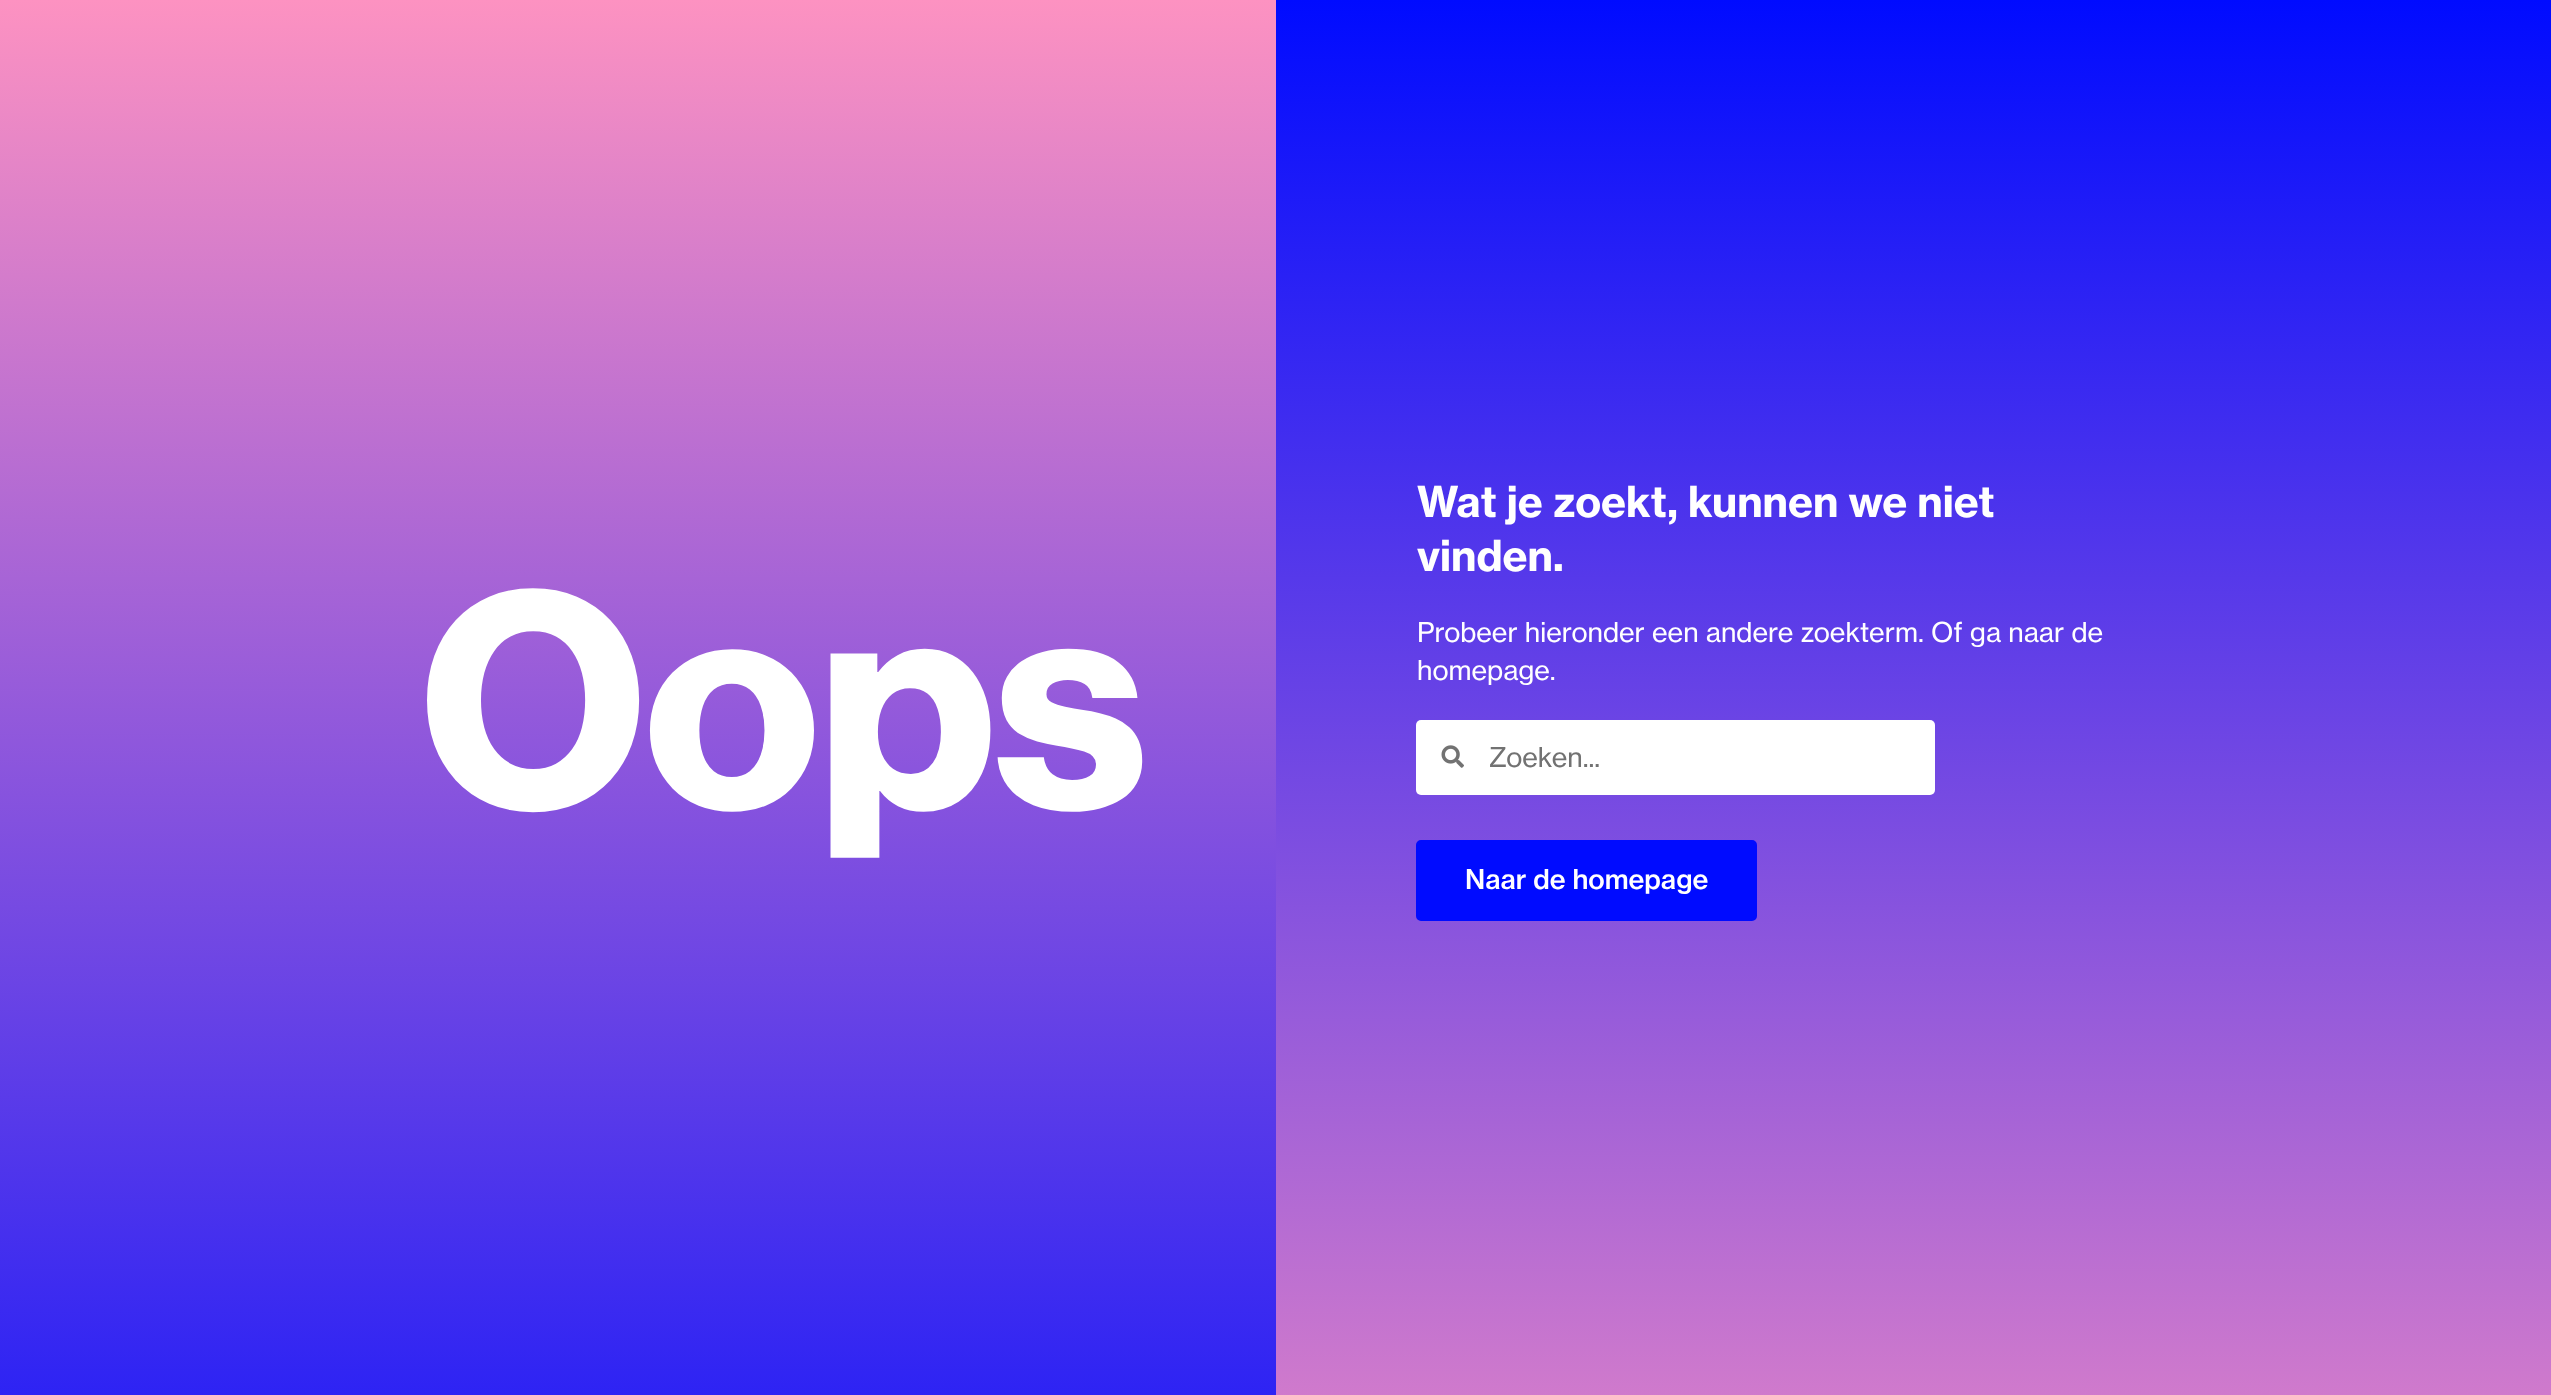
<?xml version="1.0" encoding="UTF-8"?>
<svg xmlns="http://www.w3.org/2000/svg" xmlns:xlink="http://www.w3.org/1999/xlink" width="2551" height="1395">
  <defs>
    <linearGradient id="g1" gradientUnits="userSpaceOnUse" x1="638" y1="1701" x2="638" y2="0"><stop offset="0" stop-color="#000bff" /><stop offset="1" stop-color="#fd92c1" /></linearGradient>
    <linearGradient id="g2" gradientUnits="userSpaceOnUse" x1="1914" y1="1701" x2="1914" y2="0"><stop offset="0" stop-color="#fd92c1" /><stop offset="1" stop-color="#000bff" /></linearGradient>
  </defs>
  <rect width="100%" height="100%" fill="#ffffff" />
  <rect width="1276" height="1395" fill="url(#g1)" />
  <rect x="1276" width="1275" height="1395" fill="url(#g2)" />
  <rect x="1416" y="720" width="519" height="75" rx="5" fill="#ffffff" />
  <image x="1441" y="745" width="23" height="23" xlink:href="image1.png" />
  <rect x="1417.5" y="841.5" width="338" height="78" rx="3.5" fill="#000bff" stroke="#000bff" stroke-width="3" />
  <text x="421" y="807" style="font-family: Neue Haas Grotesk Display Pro; font-size: 300px; font-weight: bold; fill: #ffffff">Oops</text>
  <text x="1417" y="517" style="font-family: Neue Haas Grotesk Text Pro; font-size: 42px; font-weight: bold; fill: #ffffff">Wat je zoekt, kunnen we niet</text>
  <text x="1417" y="571" style="font-family: Neue Haas Grotesk Text Pro; font-size: 42px; font-weight: bold; fill: #ffffff">vinden.</text>
  <text x="1417" y="642" style="font-family: Neue Haas Grotesk Text Pro; font-size: 27px; fill: #ffffff">Probeer hieronder een andere zoekterm. Of ga naar de</text>
  <text x="1417" y="680" style="font-family: Neue Haas Grotesk Text Pro; font-size: 27px; fill: #ffffff">homepage.</text>
  <text x="1489" y="767" style="font-family: Neue Haas Grotesk Text Pro; font-size: 27px; fill: #727272">Zoeken...</text>
  <text x="1465" y="889" style="font-family: Neue Haas Grotesk Text Pro; font-size: 27px; font-weight: 500; fill: #ffffff">Naar de homepage</text>
</svg>
